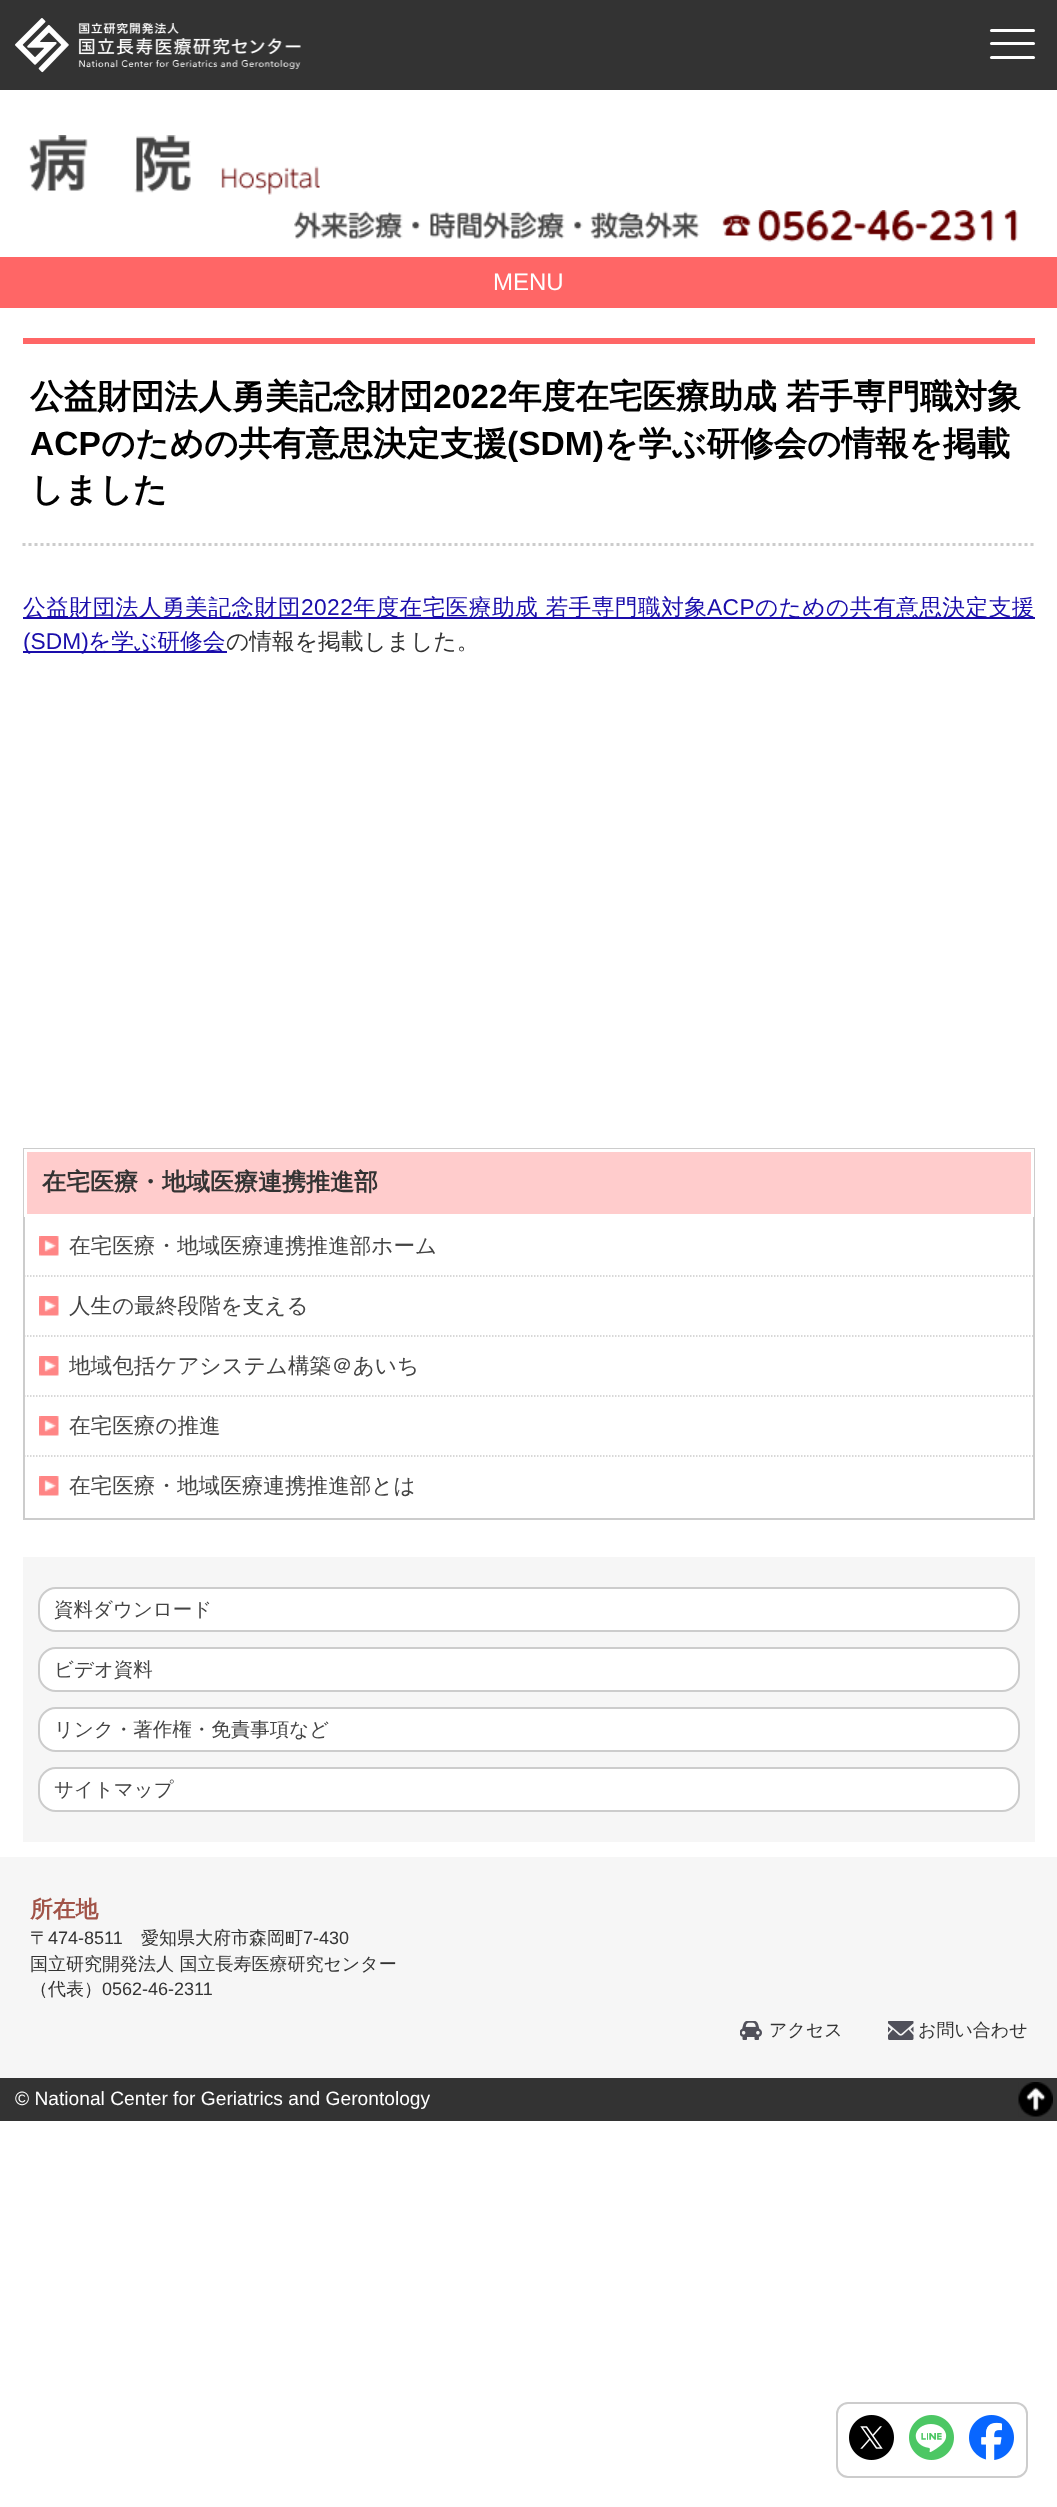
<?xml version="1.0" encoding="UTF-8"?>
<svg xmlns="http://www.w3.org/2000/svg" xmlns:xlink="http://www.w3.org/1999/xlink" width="1057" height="2507">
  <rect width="100%" height="100%" fill="#ffffff" />
  <rect width="1057" height="90" fill="#333333" />
  <image x="15" y="18" width="286" height="55" xlink:href="image1.png" />
  <rect x="990" y="29" width="45" height="3" rx="1.5" fill="#ffffff" />
  <rect x="990" y="42" width="45" height="3" rx="1.5" fill="#ffffff" />
  <rect x="990" y="56" width="45" height="3" rx="1.5" fill="#ffffff" />
  <image x="29" y="135" width="291" height="60" xlink:href="image2.png" />
  <image x="294" y="210" width="724" height="32" xlink:href="image3.png" />
  <rect y="257" width="1057" height="51" fill="#ff6666" />
  <rect x="23" y="338" width="1012" height="6" fill="#ff6666" />
  <path d="M 22.5 544.5 h 1012.5" fill="none" stroke="#cccccc" stroke-width="3" stroke-dasharray="3 3" />
  <rect x="23" y="617" width="1012" height="2" fill="#1a0dab" />
  <rect x="23" y="651" width="204" height="2" fill="#1a0dab" />
  <rect x="24" y="1149" width="1010" height="370" fill="none" stroke="#cccccc" stroke-width="2" />
  <rect x="25.5" y="1150.5" width="1007" height="65" fill="#ffcccc" stroke="#ffffff" stroke-width="3" />
  <path d="M 24 1276 h 1009.5" fill="none" stroke="#cccccc" stroke-width="1.5" stroke-dasharray="1.5 1.5" />
  <image x="39" y="1236" width="20" height="20" xlink:href="image4.png" />
  <path d="M 24 1336 h 1009.5" fill="none" stroke="#cccccc" stroke-width="1.5" stroke-dasharray="1.5 1.5" />
  <image x="39" y="1296" width="20" height="20" xlink:href="image4.png" />
  <path d="M 24 1396 h 1009.5" fill="none" stroke="#cccccc" stroke-width="1.5" stroke-dasharray="1.5 1.5" />
  <image x="39" y="1356" width="20" height="20" xlink:href="image4.png" />
  <path d="M 24 1456 h 1009.5" fill="none" stroke="#cccccc" stroke-width="1.5" stroke-dasharray="1.5 1.5" />
  <image x="39" y="1416" width="20" height="20" xlink:href="image4.png" />
  <image x="39" y="1476" width="20" height="20" xlink:href="image4.png" />
  <rect x="23" y="1557" width="1012" height="285" fill="#f6f6f6" />
  <rect x="39" y="1588" width="980" height="43" rx="17" fill="#ffffff" stroke="#cccccc" stroke-width="2" />
  <rect x="39" y="1648" width="980" height="43" rx="17" fill="#ffffff" stroke="#cccccc" stroke-width="2" />
  <rect x="39" y="1708" width="980" height="43" rx="17" fill="#ffffff" stroke="#cccccc" stroke-width="2" />
  <rect x="39" y="1768" width="980" height="43" rx="17" fill="#ffffff" stroke="#cccccc" stroke-width="2" />
  <rect y="1857" width="1057" height="221" fill="#f6f6f6" />
  <image x="740" y="2021" width="22" height="19" xlink:href="image5.png" />
  <image x="888" y="2021" width="26" height="19" xlink:href="image6.png" />
  <rect y="2078" width="1057" height="43" fill="#333333" />
  <image x="1018" y="2082" width="35" height="35" xlink:href="image7.png" />
  <rect x="837" y="2403" width="190" height="74" rx="11" fill="none" stroke="#cccccc" stroke-width="2" />
  <image x="849" y="2415" width="45" height="45" xlink:href="image8.png" />
  <image x="909" y="2415" width="45" height="45" xlink:href="image9.png" />
  <image x="969" y="2415" width="45" height="45" xlink:href="image10.png" />
  <text x="493" y="290" style="font-family: Liberation Sans; font-size: 24px; fill: #ffffff">MENU</text>
  <text x="30" y="408" style="font-family: WenQuanYi Zen Hei; font-size: 33.6px; font-weight: bold; fill: #000000">公益財団法人勇美記念財団</text>
  <text x="433" y="408" style="font-family: Liberation Sans; font-size: 33.6px; font-weight: bold; fill: #000000">2022</text>
  <text x="508" y="408" word-spacing="-1" style="font-family: WenQuanYi Zen Hei; font-size: 33.6px; font-weight: bold; fill: #000000">年度在宅医療助成 若手専門職対象</text>
  <text x="30" y="455" style="font-family: Liberation Sans; font-size: 33.6px; font-weight: bold; fill: #000000">ACP</text>
  <text x="101" y="455" style="font-family: WenQuanYi Zen Hei; font-size: 33.6px; font-weight: bold; fill: #000000">のための共有意思決定支援</text>
  <text x="507" y="455" style="font-family: Liberation Sans; font-size: 33.6px; font-weight: bold; fill: #000000">(SDM)</text>
  <text x="604" y="455" style="font-family: WenQuanYi Zen Hei; font-size: 33.6px; font-weight: bold; fill: #000000">を学ぶ研修会の情報を掲載</text>
  <text x="30" y="501" style="font-family: WenQuanYi Zen Hei; font-size: 33.6px; font-weight: bold; fill: #000000">しました</text>
  <text x="23" y="615" style="font-family: WenQuanYi Zen Hei; font-size: 22.75px; font-weight: 500; letter-spacing: 0.4px; fill: #1a0dab">公益財団法人勇美記念財団</text>
  <text x="301" y="615" style="font-family: Liberation Sans; font-size: 22.75px; letter-spacing: 0.4px; fill: #1a0dab">2022</text>
  <text x="353" y="615" style="font-family: WenQuanYi Zen Hei; font-size: 22.75px; font-weight: 500; letter-spacing: 0.4px; fill: #1a0dab">年度在宅医療助成 若手専門職対象</text>
  <text x="707" y="615" style="font-family: Liberation Sans; font-size: 22.75px; letter-spacing: 0.4px; fill: #1a0dab">ACP</text>
  <text x="755" y="615" style="font-family: WenQuanYi Zen Hei; font-size: 22.75px; font-weight: 500; letter-spacing: 0.4px; fill: #1a0dab">のための共有意思決定支援</text>
  <text x="23" y="649" style="font-family: Liberation Sans; font-size: 22.75px; fill: #1a0dab">(SDM)</text>
  <text x="88" y="649" style="font-family: WenQuanYi Zen Hei; font-size: 22.75px; font-weight: 500; fill: #1a0dab">を学ぶ研修会</text>
  <text x="226" y="649" style="font-family: WenQuanYi Zen Hei; font-size: 22.75px; font-weight: 500; fill: #333333">の情報を掲載しました。</text>
  <text x="42" y="1190" style="font-family: WenQuanYi Zen Hei; font-size: 24px; font-weight: bold; fill: #333333">在宅医療・地域医療連携推進部</text>
  <text x="69" y="1253" style="font-family: WenQuanYi Zen Hei; font-size: 21.6px; font-weight: 500; fill: #444444">在宅医療・地域医療連携推進部ホーム</text>
  <text x="69" y="1313" style="font-family: WenQuanYi Zen Hei; font-size: 21.6px; font-weight: 500; fill: #444444">人生の最終段階を支える</text>
  <text x="69" y="1373" style="font-family: WenQuanYi Zen Hei; font-size: 21.6px; font-weight: 500; fill: #444444">地域包括ケアシステム構築＠あいち</text>
  <text x="69" y="1433" style="font-family: WenQuanYi Zen Hei; font-size: 21.6px; font-weight: 500; fill: #444444">在宅医療の推進</text>
  <text x="69" y="1493" style="font-family: WenQuanYi Zen Hei; font-size: 21.6px; font-weight: 500; fill: #444444">在宅医療・地域医療連携推進部とは</text>
  <text x="54" y="1616" style="font-family: WenQuanYi Zen Hei; font-size: 19.5px; font-weight: 500; fill: #444444">資料ダウンロード</text>
  <text x="54" y="1676" style="font-family: WenQuanYi Zen Hei; font-size: 19.5px; font-weight: 500; fill: #444444">ビデオ資料</text>
  <text x="54" y="1736" style="font-family: WenQuanYi Zen Hei; font-size: 19.5px; font-weight: 500; fill: #444444">リンク・著作権・免責事項など</text>
  <text x="54" y="1796" style="font-family: WenQuanYi Zen Hei; font-size: 19.5px; font-weight: 500; fill: #444444">サイトマップ</text>
  <text x="30" y="1917" style="font-family: WenQuanYi Zen Hei; font-size: 22.75px; font-weight: bold; fill: #a15348">所在地</text>
  <text x="30" y="1944" style="font-family: WenQuanYi Zen Hei; font-size: 18px; font-weight: 500; fill: #333333">〒</text>
  <text x="48" y="1944" style="font-family: Liberation Sans; font-size: 18px; fill: #333333">474-8511</text>
  <text x="141" y="1944" style="font-family: WenQuanYi Zen Hei; font-size: 18px; font-weight: 500; fill: #333333">愛知県大府市森岡町</text>
  <text x="303" y="1944" style="font-family: Liberation Sans; font-size: 18px; fill: #333333">7-430</text>
  <text x="30" y="1970" style="font-family: WenQuanYi Zen Hei; font-size: 18px; font-weight: 500; fill: #333333">国立研究開発法人 国立長寿医療研究センター</text>
  <text x="30" y="1995" style="font-family: WenQuanYi Zen Hei; font-size: 18px; font-weight: 500; fill: #333333">（代表）</text>
  <text x="102" y="1995" style="font-family: Liberation Sans; font-size: 18px; fill: #333333">0562-46-2311</text>
  <text x="769" y="2036" style="font-family: WenQuanYi Zen Hei; font-size: 18px; font-weight: 500; fill: #333333">アクセス</text>
  <text x="918" y="2036" style="font-family: WenQuanYi Zen Hei; font-size: 18px; font-weight: 500; fill: #333333">お問い合わせ</text>
  <text x="15" y="2105" style="font-family: Liberation Sans; font-size: 19.2px; fill: #ffffff">© National Center for Geriatrics and Gerontology</text>
</svg>
